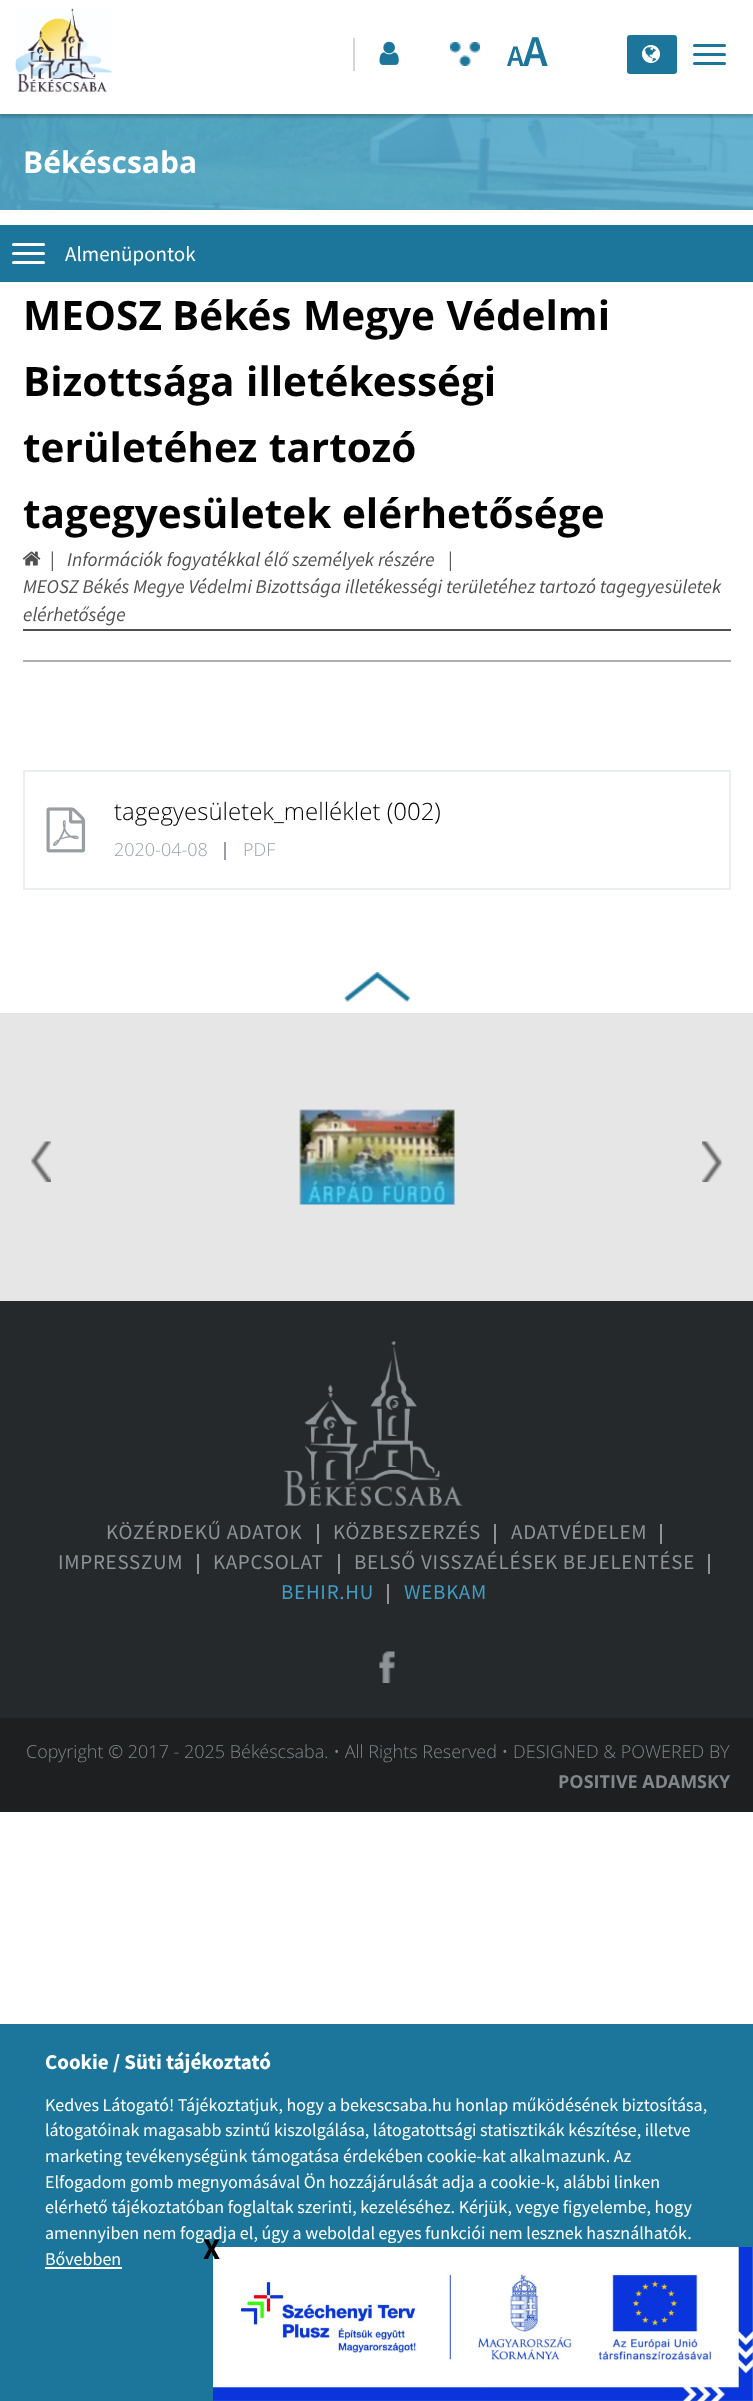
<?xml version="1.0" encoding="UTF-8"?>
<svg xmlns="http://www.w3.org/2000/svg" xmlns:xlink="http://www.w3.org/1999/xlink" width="753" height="2401">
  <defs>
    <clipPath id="clip1"><rect x="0" y="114" width="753" height="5" /></clipPath>
  </defs>
  <rect width="100%" height="100%" fill="#ffffff" />
  <image x="0" y="114" width="753" height="96" xlink:href="image5.png" />
  <g clip-path="url(#clip1)">
    <rect y="3" width="753" height="114" fill="#000000" fill-opacity="0.2" filter="blur(1.5px)" />
  </g>
  <image x="15" y="8" width="98" height="85" xlink:href="image1.png" />
  <rect x="353" y="38" width="2" height="33" fill="#d5d7d7" />
  <image x="379" y="41" width="20" height="24" xlink:href="image2.png" />
  <image x="450" y="42" width="30" height="24" xlink:href="image3.png" />
  <rect x="627" y="35" width="50" height="39" rx="3" fill="#1c759a" />
  <image x="642" y="45" width="18" height="18" xlink:href="image4.png" />
  <rect x="693" y="44" width="33" height="3" rx="1.5" fill="#1c759a" />
  <rect x="693" y="53" width="33" height="3" rx="1.5" fill="#1c759a" />
  <rect x="693" y="62" width="33" height="3" rx="1.5" fill="#1c759a" />
  <rect y="225" width="753" height="57" fill="#1c759a" />
  <rect x="12" y="243" width="33" height="3" rx="1.5" fill="#ffffff" />
  <rect x="12" y="252" width="33" height="3" rx="1.5" fill="#ffffff" />
  <rect x="12" y="261" width="33" height="3" rx="1.5" fill="#ffffff" />
  <image x="22" y="551" width="19" height="15" xlink:href="image6.png" />
  <rect x="23" y="629" width="708" height="2" fill="#515151" />
  <rect x="23" y="660" width="708" height="2" fill="#afafaf" />
  <rect x="24" y="771" width="706" height="118" fill="none" stroke="#ebeeef" stroke-width="2" />
  <image x="46" y="807" width="40" height="46" xlink:href="image7.png" />
  <rect x="224" y="842" width="2" height="18" fill="#989fa2" />
  <image x="343" y="972" width="68" height="30" xlink:href="image8.png" />
  <rect y="1301" width="753" height="417" fill="#26292b" />
  <rect y="1013" width="753" height="288" fill="#e6e6e6" />
  <image x="31" y="1141" width="20" height="41" xlink:href="image9.png" />
  <image x="299" y="1109" width="156" height="96" xlink:href="image10.png" />
  <image x="702" y="1141" width="20" height="41" xlink:href="image11.png" />
  <image x="283" y="1341" width="180" height="165" xlink:href="image12.png" />
  <rect x="317" y="1524" width="2" height="20" fill="#8d9396" />
  <rect x="494" y="1524" width="2" height="20" fill="#8d9396" />
  <rect x="660" y="1524" width="2" height="20" fill="#8d9396" />
  <rect x="197" y="1554" width="2" height="20" fill="#8d9396" />
  <rect x="338" y="1554" width="2" height="20" fill="#8d9396" />
  <rect x="708" y="1554" width="2" height="20" fill="#8d9396" />
  <rect x="387" y="1584" width="2" height="20" fill="#8d9396" />
  <image x="379" y="1651" width="16" height="32" xlink:href="image13.png" />
  <rect y="1718" width="753" height="94" fill="#1d1f20" />
  <rect y="2024" width="753" height="377" fill="#1c759a" />
  <rect x="45" y="2267" width="77" height="2" fill="#ffffff" />
  <image x="213" y="2247" width="540" height="154" xlink:href="image14.png" />
  <text x="507" y="66" style="font-family: Source Sans Pro; font-size: 30px; font-weight: 600; letter-spacing: -2px; fill: #1c759a">A</text>
  <text x="523" y="66" style="font-family: Source Sans Pro; font-size: 44px; font-weight: 600; letter-spacing: -2px; fill: #1c759a">A</text>
  <text x="23" y="173" style="font-family: Open Sans; font-size: 30px; font-weight: bold; fill: #ffffff">Békéscsaba</text>
  <text x="65" y="261" style="font-family: Source Sans Pro; font-size: 21px; fill: #ffffff">Almenüpontok</text>
  <text x="23" y="330" style="font-family: Open Sans; font-size: 40.5px; font-weight: bold; fill: #020202">MEOSZ</text>
  <text x="172" y="330" word-spacing="1" style="font-family: Open Sans; font-size: 40.5px; font-weight: bold; fill: #020202">Békés Megye Védelmi</text>
  <text x="23" y="396" word-spacing="1" style="font-family: Open Sans; font-size: 40.5px; font-weight: bold; fill: #020202">Bizottsága illetékességi</text>
  <text x="23" y="462" word-spacing="1" style="font-family: Open Sans; font-size: 40.5px; font-weight: bold; fill: #020202">területéhez tartozó</text>
  <text x="23" y="528" style="font-family: Open Sans; font-size: 40.5px; font-weight: bold; fill: #020202">tagegyesületek elérhetősége</text>
  <text x="50" y="566" style="font-family: Source Sans Pro; font-size: 19.5px; fill: #515151">|</text>
  <text x="67" y="566" style="font-family: Source Sans Pro; font-size: 19.5px; font-style: italic; fill: #515151">Információk fogyatékkal élő személyek részére</text>
  <text x="448" y="566" style="font-family: Source Sans Pro; font-size: 19.5px; fill: #515151">|</text>
  <text x="23" y="593" style="font-family: Source Sans Pro; font-size: 19.5px; font-style: italic; fill: #515151">MEOSZ Békés Megye Védelmi Bizottsága illetékességi területéhez tartozó tagegyesületek</text>
  <text x="23" y="621" style="font-family: Source Sans Pro; font-size: 19.5px; font-style: italic; fill: #515151">elérhetősége</text>
  <text x="114" y="820" style="font-family: Open Sans; font-size: 24px; font-weight: 300; fill: #020202">tagegyesületek_melléklet (002)</text>
  <text x="114" y="856" style="font-family: Open Sans; font-size: 18px; font-weight: 300; fill: #989fa2">2020-04-08</text>
  <text x="243" y="856" style="font-family: Open Sans; font-size: 18px; font-weight: 300; fill: #989fa2">PDF</text>
  <text x="106" y="1539" style="font-family: Source Sans Pro; font-size: 21px; letter-spacing: 0.75px; fill: #8d9396">KÖZÉRDEKŰ ADATOK</text>
  <text x="333" y="1539" style="font-family: Source Sans Pro; font-size: 21px; letter-spacing: 0.75px; fill: #8d9396">KÖZBESZERZÉS</text>
  <text x="511" y="1539" style="font-family: Source Sans Pro; font-size: 21px; letter-spacing: 0.75px; fill: #8d9396">ADATVÉDELEM</text>
  <text x="58" y="1569" style="font-family: Source Sans Pro; font-size: 21px; letter-spacing: 0.75px; fill: #8d9396">IMPRESSZUM</text>
  <text x="213" y="1569" style="font-family: Source Sans Pro; font-size: 21px; letter-spacing: 0.75px; fill: #8d9396">KAPCSOLAT</text>
  <text x="354" y="1569" style="font-family: Source Sans Pro; font-size: 21px; letter-spacing: 0.75px; fill: #8d9396">BELSŐ VISSZAÉLÉSEK BEJELENTÉSE</text>
  <text x="281" y="1599" style="font-family: Source Sans Pro; font-size: 21px; letter-spacing: 0.75px; fill: #419dc3">BEHIR.HU</text>
  <text x="404" y="1599" style="font-family: Source Sans Pro; font-size: 21px; letter-spacing: 0.75px; fill: #419dc3">WEBKAM</text>
  <text x="26" y="1758" style="font-family: Open Sans; font-size: 18px; font-weight: 300; fill: #81878a">Copyright © 2017 - 2025 Békéscsaba. • All Rights Reserved • DESIGNED &amp; POWERED BY</text>
  <text x="558" y="1788" style="font-family: Open Sans; font-size: 18px; font-weight: bold; fill: #81878a">POSITIVE ADAMSKY</text>
  <text x="45" y="2069" style="font-family: Source Sans Pro; font-size: 21px; font-weight: bold; fill: #ffffff">Cookie / Süti tájékoztató</text>
  <text x="45" y="2111" style="font-family: Source Sans Pro; font-size: 18px; fill: #ffffff">Kedves Látogató! Tájékoztatjuk, hogy a bekescsaba.hu honlap működésének biztosítása,</text>
  <text x="45" y="2136" style="font-family: Source Sans Pro; font-size: 18px; fill: #ffffff">látogatóinak magasabb szintű kiszolgálása, látogatottsági statisztikák készítése, illetve</text>
  <text x="45" y="2162" style="font-family: Source Sans Pro; font-size: 18px; fill: #ffffff">marketing tevékenységünk támogatása érdekében cookie-kat alkalmazunk. Az</text>
  <text x="45" y="2188" style="font-family: Source Sans Pro; font-size: 18px; fill: #ffffff">Elfogadom gomb megnyomásával Ön hozzájárulását adja a cookie-k, alábbi linken</text>
  <text x="45" y="2213" style="font-family: Source Sans Pro; font-size: 18px; fill: #ffffff">elérhető tájékoztatóban foglaltak szerinti, kezeléséhez. Kérjük, vegye figyelembe, hogy</text>
  <text x="45" y="2239" style="font-family: Source Sans Pro; font-size: 18px; fill: #ffffff">amennyiben nem fogadja el, úgy a weboldal egyes funkciói nem lesznek használhatók.</text>
  <text x="45" y="2265" style="font-family: Source Sans Pro; font-size: 18px; fill: #ffffff">Bővebben</text>
  <text x="203" y="2259" style="font-family: Source Sans Pro; font-size: 30px; font-weight: bold; fill: #020202">X</text>
</svg>
